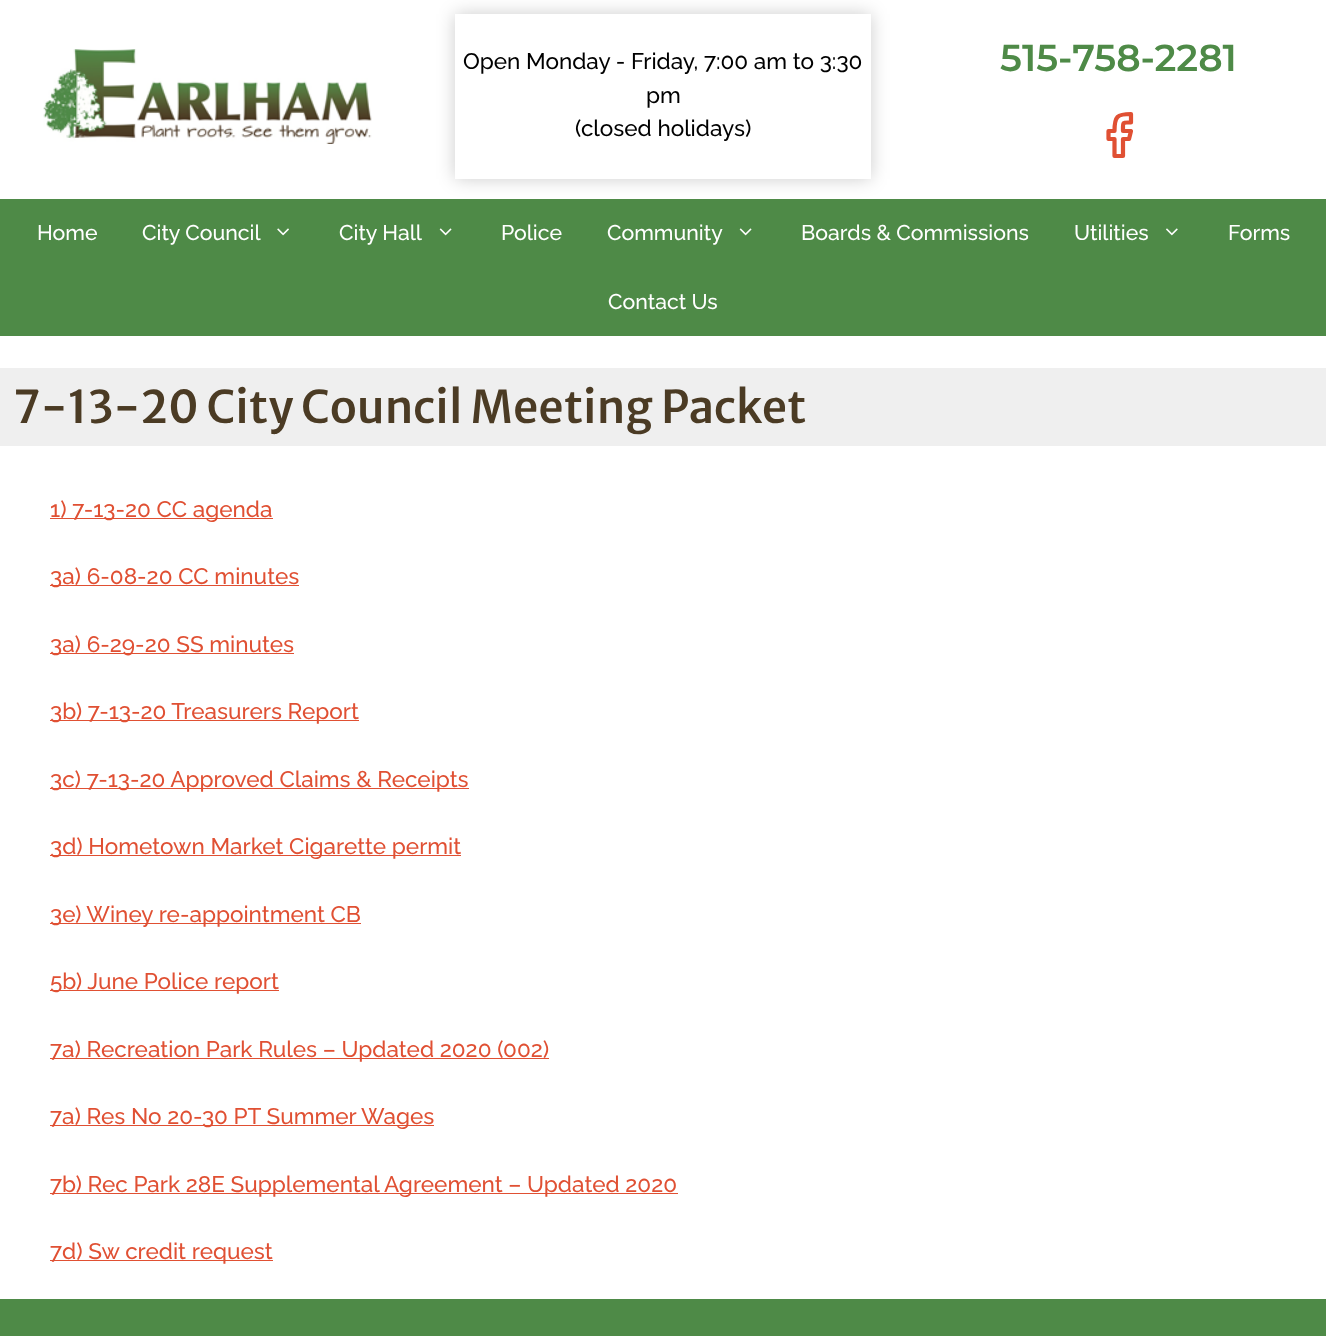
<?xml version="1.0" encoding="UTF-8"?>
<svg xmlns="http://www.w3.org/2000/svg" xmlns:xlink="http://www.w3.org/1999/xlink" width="1326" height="1336">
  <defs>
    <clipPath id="clip1"><path d="M 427 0 h 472 v 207 h -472 z m 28 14 h 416 v 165 h -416 z" clip-rule="evenodd" /></clipPath>
  </defs>
  <rect width="100%" height="100%" fill="#ffffff" />
  <image x="43" y="49" width="329" height="95" xlink:href="image1.png" />
  <rect y="199" width="1326" height="137" fill="#4e8a47" />
  <g clip-path="url(#clip1)">
    <rect x="455" y="14" width="416" height="165" fill="#000000" fill-opacity="0.2" filter="blur(9px)" />
  </g>
  <path d="M 1131 114 c -14 0 -16.5 2.5 -16.5 17 h -6 v 8 h 6 v 17 h 8.5 v -17 h 6 l 2 -8 h -8 c 0 -9.5 -1 -8.5 8 -8.5 z" fill="none" stroke="#e05033" stroke-width="4.2" stroke-linecap="round" stroke-linejoin="round" />
  <image x="277" y="228" width="12" height="8" xlink:href="image2.png" />
  <image x="439" y="228" width="13" height="8" xlink:href="image3.png" />
  <image x="739" y="228" width="13" height="8" xlink:href="image3.png" />
  <image x="1166" y="228" width="12" height="8" xlink:href="image4.png" />
  <rect y="368" width="1326" height="78" fill="#efefef" />
  <rect x="50" y="518" width="223" height="1" fill="#e05033" />
  <rect x="50" y="585" width="249" height="1" fill="#e05033" />
  <rect x="50" y="653" width="244" height="1" fill="#e05033" />
  <rect x="50" y="720" width="309" height="1" fill="#e05033" />
  <rect x="50" y="788" width="419" height="1" fill="#e05033" />
  <rect x="50" y="855" width="411" height="1" fill="#e05033" />
  <rect x="50" y="923" width="311" height="1" fill="#e05033" />
  <rect x="50" y="990" width="229" height="1" fill="#e05033" />
  <rect x="50" y="1058" width="499" height="1" fill="#e05033" />
  <rect x="50" y="1125" width="384" height="1" fill="#e05033" />
  <rect x="50" y="1193" width="628" height="1" fill="#e05033" />
  <rect x="50" y="1260" width="223" height="1" fill="#e05033" />
  <rect y="1299" width="1326" height="37" fill="#4e8a47" />
  <text x="463" y="69" style="font-family: Raleway; font-size: 22.5px; font-weight: 500; fill: #000000">Open Monday - Friday, 7:00 am to 3:30</text>
  <text x="646" y="103" style="font-family: Raleway; font-size: 22.5px; font-weight: 500; fill: #000000">pm</text>
  <text x="575" y="136" style="font-family: Raleway; font-size: 22.5px; font-weight: 500; fill: #000000">(closed holidays)</text>
  <text x="1000" y="71" style="font-family: Montserrat; font-size: 37.5px; font-weight: 600; fill: #4e8a47">515-758-2281</text>
  <text x="37" y="240" style="font-family: Raleway; font-size: 21.25px; font-weight: 500; fill: #ffffff">Home</text>
  <text x="142" y="240" style="font-family: Raleway; font-size: 21.25px; font-weight: 500; fill: #ffffff">City Council</text>
  <text x="339" y="240" style="font-family: Raleway; font-size: 21.25px; font-weight: 500; fill: #ffffff">City Hall</text>
  <text x="501" y="240" style="font-family: Raleway; font-size: 21.25px; font-weight: 500; fill: #ffffff">Police</text>
  <text x="607" y="240" style="font-family: Raleway; font-size: 21.25px; font-weight: 500; fill: #ffffff">Community</text>
  <text x="801" y="240" style="font-family: Raleway; font-size: 21.25px; font-weight: 500; fill: #ffffff">Boards &amp; Commissions</text>
  <text x="1074" y="240" style="font-family: Raleway; font-size: 21.25px; font-weight: 500; fill: #ffffff">Utilities</text>
  <text x="1228" y="240" style="font-family: Raleway; font-size: 21.25px; font-weight: 500; fill: #ffffff">Forms</text>
  <text x="608" y="309" style="font-family: Raleway; font-size: 21.25px; font-weight: 500; fill: #ffffff">Contact Us</text>
  <text x="13" y="423" style="font-family: Merriweather Sans; font-size: 45px; font-weight: 500; fill: #4b3b24">7-13-20 City Council Meeting Packet</text>
  <text x="50" y="517" style="font-family: Raleway; font-size: 22.5px; font-weight: 500; fill: #e05033">1) 7-13-20 CC agenda</text>
  <text x="50" y="584" style="font-family: Raleway; font-size: 22.5px; font-weight: 500; fill: #e05033">3a) 6-08-20 CC minutes</text>
  <text x="50" y="652" style="font-family: Raleway; font-size: 22.5px; font-weight: 500; fill: #e05033">3a) 6-29-20 SS minutes</text>
  <text x="50" y="719" style="font-family: Raleway; font-size: 22.5px; font-weight: 500; fill: #e05033">3b) 7-13-20 Treasurers Report</text>
  <text x="50" y="787" style="font-family: Raleway; font-size: 22.5px; font-weight: 500; fill: #e05033">3c) 7-13-20 Approved Claims &amp; Receipts</text>
  <text x="50" y="854" style="font-family: Raleway; font-size: 22.5px; font-weight: 500; fill: #e05033">3d) Hometown Market Cigarette permit</text>
  <text x="50" y="922" style="font-family: Raleway; font-size: 22.5px; font-weight: 500; fill: #e05033">3e) Winey re-appointment CB</text>
  <text x="50" y="989" style="font-family: Raleway; font-size: 22.5px; font-weight: 500; fill: #e05033">5b) June Police report</text>
  <text x="50" y="1057" style="font-family: Raleway; font-size: 22.5px; font-weight: 500; fill: #e05033">7a) Recreation Park Rules – Updated 2020 (002)</text>
  <text x="50" y="1124" style="font-family: Raleway; font-size: 22.5px; font-weight: 500; fill: #e05033">7a) Res No 20-30 PT Summer Wages</text>
  <text x="50" y="1192" style="font-family: Raleway; font-size: 22.5px; font-weight: 500; fill: #e05033">7b) Rec Park 28E Supplemental Agreement – Updated 2020</text>
  <text x="50" y="1259" style="font-family: Raleway; font-size: 22.5px; font-weight: 500; fill: #e05033">7d) Sw credit request</text>
</svg>
